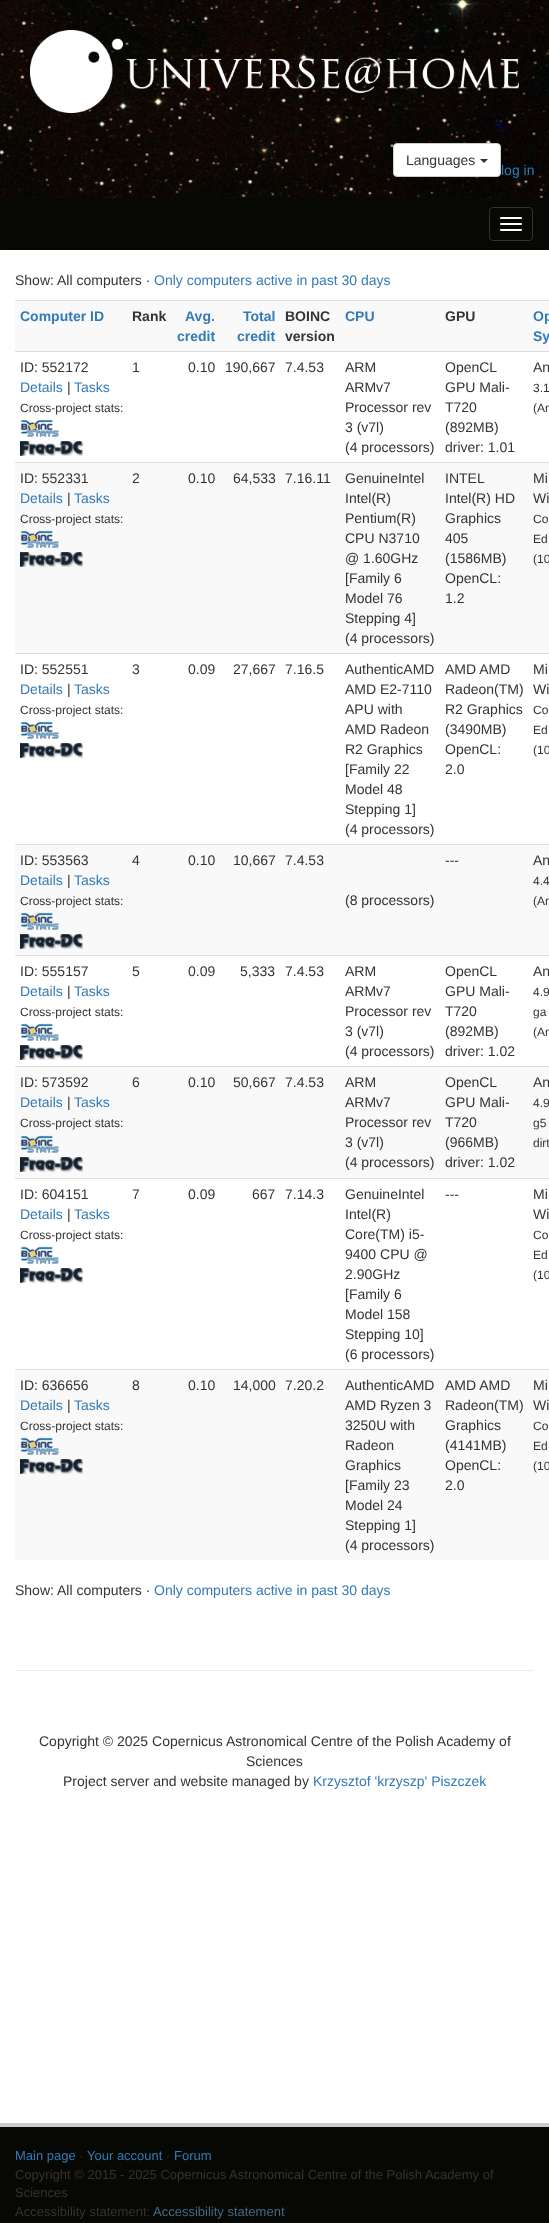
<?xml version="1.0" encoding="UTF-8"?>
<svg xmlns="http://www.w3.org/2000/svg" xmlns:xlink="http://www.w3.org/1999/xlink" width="549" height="2223">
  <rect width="100%" height="100%" fill="#ffffff" />
  <image x="0" y="0" width="549" height="198" xlink:href="image1.png" />
  <image x="30" y="30" width="489" height="83" xlink:href="image2.png" />
  <rect x="393.5" y="143.5" width="107" height="33" rx="3.5" fill="#ffffff" stroke="#cccccc" />
  <path d="M 480 159 h 8 l -4 4 z" fill="#333333" />
  <rect x="0.5" y="198.5" width="548" height="51" fill="#070803" stroke="#080808" />
  <rect x="489.5" y="207.5" width="43" height="33" rx="3.5" fill="none" stroke="#333333" />
  <rect x="500" y="217" width="22" height="2" rx="1" fill="#ffffff" />
  <rect x="500" y="223" width="22" height="2" rx="1" fill="#ffffff" />
  <rect x="500" y="229" width="22" height="2" rx="1" fill="#ffffff" />
  <rect x="15" y="301" width="534" height="50" fill="#f9f9f9" />
  <rect x="15" y="300" width="534" height="1" fill="#dddddd" />
  <image x="20" y="419" width="39" height="18" xlink:href="image3.png" />
  <image x="20" y="441" width="63" height="15" xlink:href="image4.png" />
  <rect x="15" y="351" width="534" height="1" fill="#dddddd" />
  <rect x="15" y="463" width="534" height="190" fill="#f9f9f9" />
  <image x="20" y="530" width="39" height="18" xlink:href="image5.png" />
  <image x="20" y="552" width="63" height="15" xlink:href="image6.png" />
  <rect x="15" y="462" width="534" height="1" fill="#dddddd" />
  <image x="20" y="721" width="39" height="18" xlink:href="image3.png" />
  <image x="20" y="743" width="63" height="15" xlink:href="image4.png" />
  <rect x="15" y="653" width="534" height="1" fill="#dddddd" />
  <rect x="15" y="845" width="534" height="110" fill="#f9f9f9" />
  <image x="20" y="912" width="39" height="18" xlink:href="image5.png" />
  <image x="20" y="934" width="63" height="15" xlink:href="image6.png" />
  <rect x="15" y="844" width="534" height="1" fill="#dddddd" />
  <image x="20" y="1023" width="39" height="18" xlink:href="image3.png" />
  <image x="20" y="1045" width="63" height="15" xlink:href="image4.png" />
  <rect x="15" y="955" width="534" height="1" fill="#dddddd" />
  <rect x="15" y="1067" width="534" height="111" fill="#f9f9f9" />
  <image x="20" y="1135" width="39" height="18" xlink:href="image5.png" />
  <image x="20" y="1157" width="63" height="15" xlink:href="image6.png" />
  <rect x="15" y="1066" width="534" height="1" fill="#dddddd" />
  <image x="20" y="1246" width="39" height="18" xlink:href="image3.png" />
  <image x="20" y="1268" width="63" height="15" xlink:href="image4.png" />
  <rect x="15" y="1178" width="534" height="1" fill="#dddddd" />
  <rect x="15" y="1370" width="534" height="190" fill="#f9f9f9" />
  <image x="20" y="1437" width="39" height="18" xlink:href="image5.png" />
  <image x="20" y="1459" width="63" height="15" xlink:href="image6.png" />
  <rect x="15" y="1369" width="534" height="1" fill="#dddddd" />
  <rect x="15" y="1670" width="519" height="1" fill="#eeeeee" />
  <rect y="2127" width="549" height="96" fill="#070803" />
  <rect y="2123" width="549" height="4" fill="#cccccc" />
  <text x="406" y="165" style="font-family: Liberation Sans; font-size: 14px; fill: #333333">Languages</text>
  <text x="501" y="175" style="font-family: Liberation Sans; font-size: 14px; fill: #337ab7">log in</text>
  <text x="15" y="285" style="font-family: Liberation Sans; font-size: 14px; fill: #333333">Show: All computers ·</text>
  <text x="154" y="285" style="font-family: Liberation Sans; font-size: 14px; fill: #337ab7">Only computers active in past 30 days</text>
  <text x="20" y="321" style="font-family: Liberation Sans; font-size: 14px; font-weight: bold; fill: #337ab7">Computer ID</text>
  <text x="132" y="321" style="font-family: Liberation Sans; font-size: 14px; font-weight: bold; fill: #333333">Rank</text>
  <text x="185" y="321" style="font-family: Liberation Sans; font-size: 14px; font-weight: bold; fill: #337ab7">Avg.</text>
  <text x="177" y="341" style="font-family: Liberation Sans; font-size: 14px; font-weight: bold; fill: #337ab7">credit</text>
  <text x="243" y="321" style="font-family: Liberation Sans; font-size: 14px; font-weight: bold; fill: #337ab7">Total</text>
  <text x="237" y="341" style="font-family: Liberation Sans; font-size: 14px; font-weight: bold; fill: #337ab7">credit</text>
  <text x="285" y="321" style="font-family: Liberation Sans; font-size: 14px; font-weight: bold; fill: #333333">BOINC</text>
  <text x="285" y="341" style="font-family: Liberation Sans; font-size: 14px; font-weight: bold; fill: #333333">version</text>
  <text x="345" y="321" style="font-family: Liberation Sans; font-size: 14px; font-weight: bold; fill: #337ab7">CPU</text>
  <text x="445" y="321" style="font-family: Liberation Sans; font-size: 14px; font-weight: bold; fill: #333333">GPU</text>
  <text x="533" y="321" style="font-family: Liberation Sans; font-size: 14px; font-weight: bold; fill: #337ab7">Op</text>
  <text x="533" y="341" style="font-family: Liberation Sans; font-size: 14px; font-weight: bold; fill: #337ab7">Sy</text>
  <text x="20" y="372" style="font-family: Liberation Sans; font-size: 14px; fill: #333333">ID: 552172</text>
  <text x="20" y="392" style="font-family: Liberation Sans; font-size: 14px; fill: #337ab7">Details</text>
  <text x="67" y="392" style="font-family: Liberation Sans; font-size: 14px; fill: #333333">|</text>
  <text x="74" y="392" style="font-family: Liberation Sans; font-size: 14px; fill: #337ab7">Tasks</text>
  <text x="20" y="412" style="font-family: Liberation Sans; font-size: 12px; fill: #333333">Cross-project stats:</text>
  <text x="132" y="372" style="font-family: Liberation Sans; font-size: 14px; fill: #333333">1</text>
  <text x="188" y="372" style="font-family: Liberation Sans; font-size: 14px; fill: #333333">0.10</text>
  <text x="225" y="372" style="font-family: Liberation Sans; font-size: 14px; fill: #333333">190,667</text>
  <text x="285" y="372" style="font-family: Liberation Sans; font-size: 14px; fill: #333333">7.4.53</text>
  <text x="345" y="372" style="font-family: Liberation Sans; font-size: 14px; fill: #333333">ARM</text>
  <text x="345" y="392" style="font-family: Liberation Sans; font-size: 14px; fill: #333333">ARMv7</text>
  <text x="345" y="412" style="font-family: Liberation Sans; font-size: 14px; fill: #333333">Processor rev</text>
  <text x="345" y="432" style="font-family: Liberation Sans; font-size: 14px; fill: #333333">3 (v7l)</text>
  <text x="345" y="452" style="font-family: Liberation Sans; font-size: 14px; fill: #333333">(4 processors)</text>
  <text x="445" y="372" style="font-family: Liberation Sans; font-size: 14px; fill: #333333">OpenCL</text>
  <text x="445" y="392" style="font-family: Liberation Sans; font-size: 14px; fill: #333333">GPU Mali-</text>
  <text x="445" y="412" style="font-family: Liberation Sans; font-size: 14px; fill: #333333">T720</text>
  <text x="445" y="432" style="font-family: Liberation Sans; font-size: 14px; fill: #333333">(892MB)</text>
  <text x="445" y="452" style="font-family: Liberation Sans; font-size: 14px; fill: #333333">driver: 1.01</text>
  <text x="533" y="372" style="font-family: Liberation Sans; font-size: 14px; fill: #333333">An</text>
  <text x="533" y="392" style="font-family: Liberation Sans; font-size: 12px; fill: #333333">3.1</text>
  <text x="533" y="412" style="font-family: Liberation Sans; font-size: 12px; fill: #333333">(An</text>
  <text x="20" y="483" style="font-family: Liberation Sans; font-size: 14px; fill: #333333">ID: 552331</text>
  <text x="20" y="503" style="font-family: Liberation Sans; font-size: 14px; fill: #337ab7">Details</text>
  <text x="67" y="503" style="font-family: Liberation Sans; font-size: 14px; fill: #333333">|</text>
  <text x="74" y="503" style="font-family: Liberation Sans; font-size: 14px; fill: #337ab7">Tasks</text>
  <text x="20" y="523" style="font-family: Liberation Sans; font-size: 12px; fill: #333333">Cross-project stats:</text>
  <text x="132" y="483" style="font-family: Liberation Sans; font-size: 14px; fill: #333333">2</text>
  <text x="188" y="483" style="font-family: Liberation Sans; font-size: 14px; fill: #333333">0.10</text>
  <text x="233" y="483" style="font-family: Liberation Sans; font-size: 14px; fill: #333333">64,533</text>
  <text x="285" y="483" style="font-family: Liberation Sans; font-size: 14px; fill: #333333">7.16.11</text>
  <text x="345" y="483" style="font-family: Liberation Sans; font-size: 14px; fill: #333333">GenuineIntel</text>
  <text x="345" y="503" style="font-family: Liberation Sans; font-size: 14px; fill: #333333">Intel(R)</text>
  <text x="345" y="523" style="font-family: Liberation Sans; font-size: 14px; fill: #333333">Pentium(R)</text>
  <text x="345" y="543" style="font-family: Liberation Sans; font-size: 14px; fill: #333333">CPU N3710</text>
  <text x="345" y="563" style="font-family: Liberation Sans; font-size: 14px; fill: #333333">@ 1.60GHz</text>
  <text x="345" y="583" style="font-family: Liberation Sans; font-size: 14px; fill: #333333">[Family 6</text>
  <text x="345" y="603" style="font-family: Liberation Sans; font-size: 14px; fill: #333333">Model 76</text>
  <text x="345" y="623" style="font-family: Liberation Sans; font-size: 14px; fill: #333333">Stepping 4]</text>
  <text x="345" y="643" style="font-family: Liberation Sans; font-size: 14px; fill: #333333">(4 processors)</text>
  <text x="445" y="483" style="font-family: Liberation Sans; font-size: 14px; fill: #333333">INTEL</text>
  <text x="445" y="503" style="font-family: Liberation Sans; font-size: 14px; fill: #333333">Intel(R) HD</text>
  <text x="445" y="523" style="font-family: Liberation Sans; font-size: 14px; fill: #333333">Graphics</text>
  <text x="445" y="543" style="font-family: Liberation Sans; font-size: 14px; fill: #333333">405</text>
  <text x="445" y="563" style="font-family: Liberation Sans; font-size: 14px; fill: #333333">(1586MB)</text>
  <text x="445" y="583" style="font-family: Liberation Sans; font-size: 14px; fill: #333333">OpenCL:</text>
  <text x="445" y="603" style="font-family: Liberation Sans; font-size: 14px; fill: #333333">1.2</text>
  <text x="533" y="483" style="font-family: Liberation Sans; font-size: 14px; fill: #333333">Mi</text>
  <text x="533" y="503" style="font-family: Liberation Sans; font-size: 14px; fill: #333333">Wi</text>
  <text x="533" y="523" style="font-family: Liberation Sans; font-size: 12px; fill: #333333">Co</text>
  <text x="533" y="543" style="font-family: Liberation Sans; font-size: 12px; fill: #333333">Ed</text>
  <text x="533" y="563" style="font-family: Liberation Sans; font-size: 12px; fill: #333333">(10</text>
  <text x="20" y="674" style="font-family: Liberation Sans; font-size: 14px; fill: #333333">ID: 552551</text>
  <text x="20" y="694" style="font-family: Liberation Sans; font-size: 14px; fill: #337ab7">Details</text>
  <text x="67" y="694" style="font-family: Liberation Sans; font-size: 14px; fill: #333333">|</text>
  <text x="74" y="694" style="font-family: Liberation Sans; font-size: 14px; fill: #337ab7">Tasks</text>
  <text x="20" y="714" style="font-family: Liberation Sans; font-size: 12px; fill: #333333">Cross-project stats:</text>
  <text x="132" y="674" style="font-family: Liberation Sans; font-size: 14px; fill: #333333">3</text>
  <text x="188" y="674" style="font-family: Liberation Sans; font-size: 14px; fill: #333333">0.09</text>
  <text x="233" y="674" style="font-family: Liberation Sans; font-size: 14px; fill: #333333">27,667</text>
  <text x="285" y="674" style="font-family: Liberation Sans; font-size: 14px; fill: #333333">7.16.5</text>
  <text x="345" y="674" style="font-family: Liberation Sans; font-size: 14px; fill: #333333">AuthenticAMD</text>
  <text x="345" y="694" style="font-family: Liberation Sans; font-size: 14px; fill: #333333">AMD E2-7110</text>
  <text x="345" y="714" style="font-family: Liberation Sans; font-size: 14px; fill: #333333">APU with</text>
  <text x="345" y="734" style="font-family: Liberation Sans; font-size: 14px; fill: #333333">AMD Radeon</text>
  <text x="345" y="754" style="font-family: Liberation Sans; font-size: 14px; fill: #333333">R2 Graphics</text>
  <text x="345" y="774" style="font-family: Liberation Sans; font-size: 14px; fill: #333333">[Family 22</text>
  <text x="345" y="794" style="font-family: Liberation Sans; font-size: 14px; fill: #333333">Model 48</text>
  <text x="345" y="814" style="font-family: Liberation Sans; font-size: 14px; fill: #333333">Stepping 1]</text>
  <text x="345" y="834" style="font-family: Liberation Sans; font-size: 14px; fill: #333333">(4 processors)</text>
  <text x="445" y="674" style="font-family: Liberation Sans; font-size: 14px; fill: #333333">AMD AMD</text>
  <text x="445" y="694" style="font-family: Liberation Sans; font-size: 14px; fill: #333333">Radeon(TM)</text>
  <text x="445" y="714" style="font-family: Liberation Sans; font-size: 14px; fill: #333333">R2 Graphics</text>
  <text x="445" y="734" style="font-family: Liberation Sans; font-size: 14px; fill: #333333">(3490MB)</text>
  <text x="445" y="754" style="font-family: Liberation Sans; font-size: 14px; fill: #333333">OpenCL:</text>
  <text x="445" y="774" style="font-family: Liberation Sans; font-size: 14px; fill: #333333">2.0</text>
  <text x="533" y="674" style="font-family: Liberation Sans; font-size: 14px; fill: #333333">Mi</text>
  <text x="533" y="694" style="font-family: Liberation Sans; font-size: 14px; fill: #333333">Wi</text>
  <text x="533" y="714" style="font-family: Liberation Sans; font-size: 12px; fill: #333333">Co</text>
  <text x="533" y="734" style="font-family: Liberation Sans; font-size: 12px; fill: #333333">Ed</text>
  <text x="533" y="754" style="font-family: Liberation Sans; font-size: 12px; fill: #333333">(10</text>
  <text x="20" y="865" style="font-family: Liberation Sans; font-size: 14px; fill: #333333">ID: 553563</text>
  <text x="20" y="885" style="font-family: Liberation Sans; font-size: 14px; fill: #337ab7">Details</text>
  <text x="67" y="885" style="font-family: Liberation Sans; font-size: 14px; fill: #333333">|</text>
  <text x="74" y="885" style="font-family: Liberation Sans; font-size: 14px; fill: #337ab7">Tasks</text>
  <text x="20" y="905" style="font-family: Liberation Sans; font-size: 12px; fill: #333333">Cross-project stats:</text>
  <text x="132" y="865" style="font-family: Liberation Sans; font-size: 14px; fill: #333333">4</text>
  <text x="188" y="865" style="font-family: Liberation Sans; font-size: 14px; fill: #333333">0.10</text>
  <text x="233" y="865" style="font-family: Liberation Sans; font-size: 14px; fill: #333333">10,667</text>
  <text x="285" y="865" style="font-family: Liberation Sans; font-size: 14px; fill: #333333">7.4.53</text>
  <text x="445" y="865" style="font-family: Liberation Sans; font-size: 14px; fill: #333333">---</text>
  <text x="533" y="865" style="font-family: Liberation Sans; font-size: 14px; fill: #333333">An</text>
  <text x="533" y="885" style="font-family: Liberation Sans; font-size: 12px; fill: #333333">4.4</text>
  <text x="533" y="905" style="font-family: Liberation Sans; font-size: 12px; fill: #333333">(An</text>
  <text x="345" y="905" style="font-family: Liberation Sans; font-size: 14px; fill: #333333">(8 processors)</text>
  <text x="20" y="976" style="font-family: Liberation Sans; font-size: 14px; fill: #333333">ID: 555157</text>
  <text x="20" y="996" style="font-family: Liberation Sans; font-size: 14px; fill: #337ab7">Details</text>
  <text x="67" y="996" style="font-family: Liberation Sans; font-size: 14px; fill: #333333">|</text>
  <text x="74" y="996" style="font-family: Liberation Sans; font-size: 14px; fill: #337ab7">Tasks</text>
  <text x="20" y="1016" style="font-family: Liberation Sans; font-size: 12px; fill: #333333">Cross-project stats:</text>
  <text x="132" y="976" style="font-family: Liberation Sans; font-size: 14px; fill: #333333">5</text>
  <text x="188" y="976" style="font-family: Liberation Sans; font-size: 14px; fill: #333333">0.09</text>
  <text x="240" y="976" style="font-family: Liberation Sans; font-size: 14px; fill: #333333">5,333</text>
  <text x="285" y="976" style="font-family: Liberation Sans; font-size: 14px; fill: #333333">7.4.53</text>
  <text x="345" y="976" style="font-family: Liberation Sans; font-size: 14px; fill: #333333">ARM</text>
  <text x="345" y="996" style="font-family: Liberation Sans; font-size: 14px; fill: #333333">ARMv7</text>
  <text x="345" y="1016" style="font-family: Liberation Sans; font-size: 14px; fill: #333333">Processor rev</text>
  <text x="345" y="1036" style="font-family: Liberation Sans; font-size: 14px; fill: #333333">3 (v7l)</text>
  <text x="345" y="1056" style="font-family: Liberation Sans; font-size: 14px; fill: #333333">(4 processors)</text>
  <text x="445" y="976" style="font-family: Liberation Sans; font-size: 14px; fill: #333333">OpenCL</text>
  <text x="445" y="996" style="font-family: Liberation Sans; font-size: 14px; fill: #333333">GPU Mali-</text>
  <text x="445" y="1016" style="font-family: Liberation Sans; font-size: 14px; fill: #333333">T720</text>
  <text x="445" y="1036" style="font-family: Liberation Sans; font-size: 14px; fill: #333333">(892MB)</text>
  <text x="445" y="1056" style="font-family: Liberation Sans; font-size: 14px; fill: #333333">driver: 1.02</text>
  <text x="533" y="976" style="font-family: Liberation Sans; font-size: 14px; fill: #333333">An</text>
  <text x="533" y="996" style="font-family: Liberation Sans; font-size: 12px; fill: #333333">4.9</text>
  <text x="533" y="1016" style="font-family: Liberation Sans; font-size: 12px; fill: #333333">ga</text>
  <text x="533" y="1036" style="font-family: Liberation Sans; font-size: 12px; fill: #333333">(An</text>
  <text x="20" y="1087" style="font-family: Liberation Sans; font-size: 14px; fill: #333333">ID: 573592</text>
  <text x="20" y="1107" style="font-family: Liberation Sans; font-size: 14px; fill: #337ab7">Details</text>
  <text x="67" y="1107" style="font-family: Liberation Sans; font-size: 14px; fill: #333333">|</text>
  <text x="74" y="1107" style="font-family: Liberation Sans; font-size: 14px; fill: #337ab7">Tasks</text>
  <text x="20" y="1127" style="font-family: Liberation Sans; font-size: 12px; fill: #333333">Cross-project stats:</text>
  <text x="132" y="1087" style="font-family: Liberation Sans; font-size: 14px; fill: #333333">6</text>
  <text x="188" y="1087" style="font-family: Liberation Sans; font-size: 14px; fill: #333333">0.10</text>
  <text x="233" y="1087" style="font-family: Liberation Sans; font-size: 14px; fill: #333333">50,667</text>
  <text x="285" y="1087" style="font-family: Liberation Sans; font-size: 14px; fill: #333333">7.4.53</text>
  <text x="345" y="1087" style="font-family: Liberation Sans; font-size: 14px; fill: #333333">ARM</text>
  <text x="345" y="1107" style="font-family: Liberation Sans; font-size: 14px; fill: #333333">ARMv7</text>
  <text x="345" y="1127" style="font-family: Liberation Sans; font-size: 14px; fill: #333333">Processor rev</text>
  <text x="345" y="1147" style="font-family: Liberation Sans; font-size: 14px; fill: #333333">3 (v7l)</text>
  <text x="345" y="1167" style="font-family: Liberation Sans; font-size: 14px; fill: #333333">(4 processors)</text>
  <text x="445" y="1087" style="font-family: Liberation Sans; font-size: 14px; fill: #333333">OpenCL</text>
  <text x="445" y="1107" style="font-family: Liberation Sans; font-size: 14px; fill: #333333">GPU Mali-</text>
  <text x="445" y="1127" style="font-family: Liberation Sans; font-size: 14px; fill: #333333">T720</text>
  <text x="445" y="1147" style="font-family: Liberation Sans; font-size: 14px; fill: #333333">(966MB)</text>
  <text x="445" y="1167" style="font-family: Liberation Sans; font-size: 14px; fill: #333333">driver: 1.02</text>
  <text x="533" y="1087" style="font-family: Liberation Sans; font-size: 14px; fill: #333333">An</text>
  <text x="533" y="1107" style="font-family: Liberation Sans; font-size: 12px; fill: #333333">4.9</text>
  <text x="533" y="1127" style="font-family: Liberation Sans; font-size: 12px; fill: #333333">g5</text>
  <text x="533" y="1147" style="font-family: Liberation Sans; font-size: 12px; fill: #333333">dirt</text>
  <text x="20" y="1199" style="font-family: Liberation Sans; font-size: 14px; fill: #333333">ID: 604151</text>
  <text x="20" y="1219" style="font-family: Liberation Sans; font-size: 14px; fill: #337ab7">Details</text>
  <text x="67" y="1219" style="font-family: Liberation Sans; font-size: 14px; fill: #333333">|</text>
  <text x="74" y="1219" style="font-family: Liberation Sans; font-size: 14px; fill: #337ab7">Tasks</text>
  <text x="20" y="1239" style="font-family: Liberation Sans; font-size: 12px; fill: #333333">Cross-project stats:</text>
  <text x="132" y="1199" style="font-family: Liberation Sans; font-size: 14px; fill: #333333">7</text>
  <text x="188" y="1199" style="font-family: Liberation Sans; font-size: 14px; fill: #333333">0.09</text>
  <text x="252" y="1199" style="font-family: Liberation Sans; font-size: 14px; fill: #333333">667</text>
  <text x="285" y="1199" style="font-family: Liberation Sans; font-size: 14px; fill: #333333">7.14.3</text>
  <text x="345" y="1199" style="font-family: Liberation Sans; font-size: 14px; fill: #333333">GenuineIntel</text>
  <text x="345" y="1219" style="font-family: Liberation Sans; font-size: 14px; fill: #333333">Intel(R)</text>
  <text x="345" y="1239" style="font-family: Liberation Sans; font-size: 14px; fill: #333333">Core(TM) i5-</text>
  <text x="345" y="1259" style="font-family: Liberation Sans; font-size: 14px; fill: #333333">9400 CPU @</text>
  <text x="345" y="1279" style="font-family: Liberation Sans; font-size: 14px; fill: #333333">2.90GHz</text>
  <text x="345" y="1299" style="font-family: Liberation Sans; font-size: 14px; fill: #333333">[Family 6</text>
  <text x="345" y="1319" style="font-family: Liberation Sans; font-size: 14px; fill: #333333">Model 158</text>
  <text x="345" y="1339" style="font-family: Liberation Sans; font-size: 14px; fill: #333333">Stepping 10]</text>
  <text x="345" y="1359" style="font-family: Liberation Sans; font-size: 14px; fill: #333333">(6 processors)</text>
  <text x="445" y="1199" style="font-family: Liberation Sans; font-size: 14px; fill: #333333">---</text>
  <text x="533" y="1199" style="font-family: Liberation Sans; font-size: 14px; fill: #333333">Mi</text>
  <text x="533" y="1219" style="font-family: Liberation Sans; font-size: 14px; fill: #333333">Wi</text>
  <text x="533" y="1239" style="font-family: Liberation Sans; font-size: 12px; fill: #333333">Co</text>
  <text x="533" y="1259" style="font-family: Liberation Sans; font-size: 12px; fill: #333333">Ed</text>
  <text x="533" y="1279" style="font-family: Liberation Sans; font-size: 12px; fill: #333333">(10</text>
  <text x="20" y="1390" style="font-family: Liberation Sans; font-size: 14px; fill: #333333">ID: 636656</text>
  <text x="20" y="1410" style="font-family: Liberation Sans; font-size: 14px; fill: #337ab7">Details</text>
  <text x="67" y="1410" style="font-family: Liberation Sans; font-size: 14px; fill: #333333">|</text>
  <text x="74" y="1410" style="font-family: Liberation Sans; font-size: 14px; fill: #337ab7">Tasks</text>
  <text x="20" y="1430" style="font-family: Liberation Sans; font-size: 12px; fill: #333333">Cross-project stats:</text>
  <text x="132" y="1390" style="font-family: Liberation Sans; font-size: 14px; fill: #333333">8</text>
  <text x="188" y="1390" style="font-family: Liberation Sans; font-size: 14px; fill: #333333">0.10</text>
  <text x="233" y="1390" style="font-family: Liberation Sans; font-size: 14px; fill: #333333">14,000</text>
  <text x="285" y="1390" style="font-family: Liberation Sans; font-size: 14px; fill: #333333">7.20.2</text>
  <text x="345" y="1390" style="font-family: Liberation Sans; font-size: 14px; fill: #333333">AuthenticAMD</text>
  <text x="345" y="1410" style="font-family: Liberation Sans; font-size: 14px; fill: #333333">AMD Ryzen 3</text>
  <text x="345" y="1430" style="font-family: Liberation Sans; font-size: 14px; fill: #333333">3250U with</text>
  <text x="345" y="1450" style="font-family: Liberation Sans; font-size: 14px; fill: #333333">Radeon</text>
  <text x="345" y="1470" style="font-family: Liberation Sans; font-size: 14px; fill: #333333">Graphics</text>
  <text x="345" y="1490" style="font-family: Liberation Sans; font-size: 14px; fill: #333333">[Family 23</text>
  <text x="345" y="1510" style="font-family: Liberation Sans; font-size: 14px; fill: #333333">Model 24</text>
  <text x="345" y="1530" style="font-family: Liberation Sans; font-size: 14px; fill: #333333">Stepping 1]</text>
  <text x="345" y="1550" style="font-family: Liberation Sans; font-size: 14px; fill: #333333">(4 processors)</text>
  <text x="445" y="1390" style="font-family: Liberation Sans; font-size: 14px; fill: #333333">AMD AMD</text>
  <text x="445" y="1410" style="font-family: Liberation Sans; font-size: 14px; fill: #333333">Radeon(TM)</text>
  <text x="445" y="1430" style="font-family: Liberation Sans; font-size: 14px; fill: #333333">Graphics</text>
  <text x="445" y="1450" style="font-family: Liberation Sans; font-size: 14px; fill: #333333">(4141MB)</text>
  <text x="445" y="1470" style="font-family: Liberation Sans; font-size: 14px; fill: #333333">OpenCL:</text>
  <text x="445" y="1490" style="font-family: Liberation Sans; font-size: 14px; fill: #333333">2.0</text>
  <text x="533" y="1390" style="font-family: Liberation Sans; font-size: 14px; fill: #333333">Mi</text>
  <text x="533" y="1410" style="font-family: Liberation Sans; font-size: 14px; fill: #333333">Wi</text>
  <text x="533" y="1430" style="font-family: Liberation Sans; font-size: 12px; fill: #333333">Co</text>
  <text x="533" y="1450" style="font-family: Liberation Sans; font-size: 12px; fill: #333333">Ed</text>
  <text x="533" y="1470" style="font-family: Liberation Sans; font-size: 12px; fill: #333333">(10</text>
  <text x="15" y="1595" style="font-family: Liberation Sans; font-size: 14px; fill: #333333">Show: All computers ·</text>
  <text x="154" y="1595" style="font-family: Liberation Sans; font-size: 14px; fill: #337ab7">Only computers active in past 30 days</text>
  <text x="39" y="1746" style="font-family: Liberation Sans; font-size: 14px; fill: #333333">Copyright © 2025 Copernicus Astronomical Centre of the Polish Academy of</text>
  <text x="246" y="1766" style="font-family: Liberation Sans; font-size: 14px; fill: #333333">Sciences</text>
  <text x="63" y="1786" style="font-family: Liberation Sans; font-size: 14px; fill: #333333">Project server and website managed by</text>
  <text x="313" y="1786" style="font-family: Liberation Sans; font-size: 14px; fill: #337ab7">Krzysztof 'krzyszp' Piszczek</text>
  <text x="15" y="2160" style="font-family: Liberation Sans; font-size: 13px; fill: #337ab7">Main page</text>
  <text x="79" y="2160" style="font-family: Liberation Sans; font-size: 13px; fill: #333333">·</text>
  <text x="87" y="2160" style="font-family: Liberation Sans; font-size: 13px; fill: #337ab7">Your account</text>
  <text x="166" y="2160" style="font-family: Liberation Sans; font-size: 13px; fill: #333333">·</text>
  <text x="174" y="2160" style="font-family: Liberation Sans; font-size: 13px; fill: #337ab7">Forum</text>
  <text x="15" y="2179" style="font-family: Liberation Sans; font-size: 13px; fill: #333333">Copyright © 2015 - 2025 Copernicus Astronomical Centre of the Polish Academy of</text>
  <text x="15" y="2197" style="font-family: Liberation Sans; font-size: 13px; fill: #333333">Sciences</text>
  <text x="15" y="2216" style="font-family: Liberation Sans; font-size: 13px; fill: #333333">Accessibility statement:</text>
  <text x="153" y="2216" style="font-family: Liberation Sans; font-size: 13px; fill: #436a86">Accessibility statement</text>
</svg>
